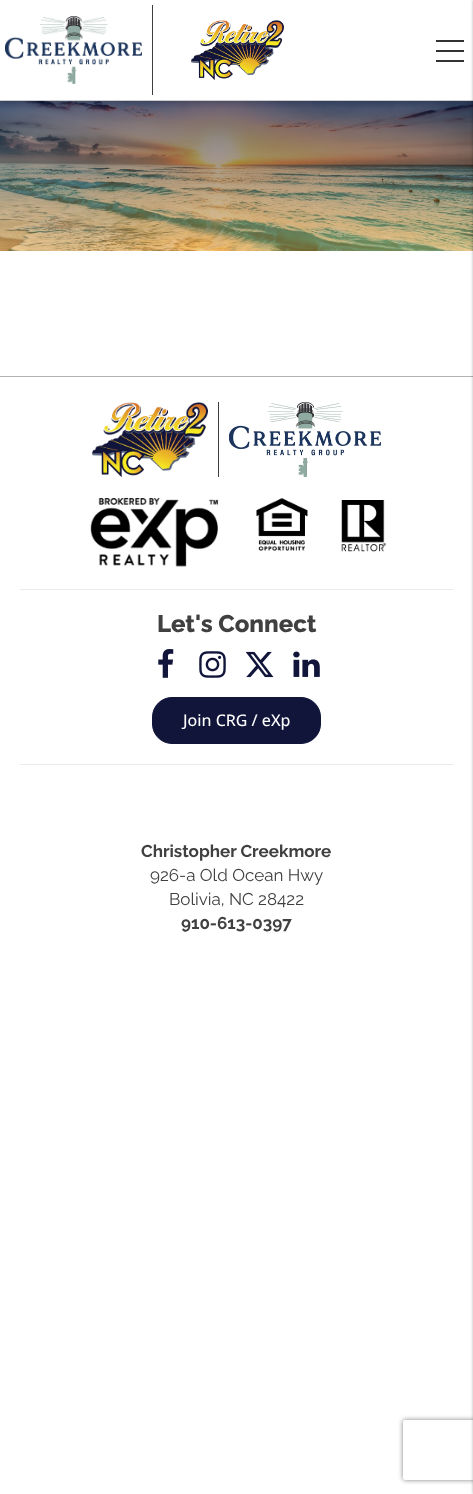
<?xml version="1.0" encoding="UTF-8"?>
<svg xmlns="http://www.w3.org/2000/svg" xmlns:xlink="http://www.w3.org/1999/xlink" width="473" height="1494">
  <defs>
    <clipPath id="clip1"><rect x="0" y="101" width="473" height="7" /></clipPath>
    <clipPath id="clip2"><path d="M 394 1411 h 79 v 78 h -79 z m 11 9 h 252 c 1 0 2 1 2 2 v 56 c 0 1 -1 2 -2 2 h -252 c -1 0 -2 -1 -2 -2 v -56 c 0 -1 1 -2 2 -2 z" clip-rule="evenodd" /></clipPath>
  </defs>
  <rect width="100%" height="100%" fill="#ffffff" />
  <image x="0" y="101" width="473" height="150" xlink:href="image3.png" />
  <g clip-path="url(#clip1)">
    <rect width="473" height="101" fill="#000000" fill-opacity="0.3" filter="blur(5px)" />
  </g>
  <rect y="100" width="473" height="1" fill="#cccccc" />
  <rect x="152" y="5" width="1" height="90" fill="#3d3d3d" />
  <image x="5" y="16" width="137" height="68" xlink:href="image1.png" />
  <image x="191" y="20" width="93" height="60" xlink:href="image2.png" />
  <rect x="436" y="40" width="28" height="2" fill="#333333" />
  <rect x="436" y="50" width="28" height="2" fill="#333333" />
  <rect x="436" y="60" width="28" height="2" fill="#333333" />
  <rect y="376" width="473" height="1" fill="#b3b3b3" />
  <rect x="473" width="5" height="1494" fill="#000000" fill-opacity="0.3" filter="blur(1.5px)" />
  <image x="92" y="402" width="116" height="75" xlink:href="image4.png" />
  <rect x="218" y="402" width="1" height="75" fill="#3d3d3d" />
  <image x="229" y="402" width="152" height="75" xlink:href="image5.png" />
  <image x="90" y="497" width="129" height="70" xlink:href="image6.png" />
  <image x="256" y="498" width="130" height="54" xlink:href="image7.png" />
  <rect x="20" y="589" width="433" height="1" fill="#eaeaea" />
  <rect x="20" y="764" width="433" height="1" fill="#eaeaea" />
  <image x="158" y="649" width="16" height="29" xlink:href="image8.png" />
  <image x="199" y="651" width="27" height="27" xlink:href="image9.png" />
  <image x="245" y="651" width="29" height="27" xlink:href="image10.png" />
  <image x="293" y="651" width="27" height="26" xlink:href="image11.png" />
  <rect x="152.5" y="697.5" width="168" height="46" rx="19.5" fill="#11153a" stroke="#11153a" />
  <g clip-path="url(#clip2)">
    <rect x="403" y="1420" width="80" height="60" rx="2" fill="#808080" filter="blur(2.5px)" />
  </g>
  <text x="157" y="632" style="font-family: Raleway; font-size: 24px; font-weight: 800; fill: #404040">Let's Connect</text>
  <text x="183" y="726" style="font-family: Open Sans; font-size: 16px; font-weight: 500; fill: #ffffff">Join CRG / eXp</text>
  <text x="141" y="857" style="font-family: Raleway; font-size: 17px; font-weight: bold; fill: #404040">Christopher Creekmore</text>
  <text x="150" y="881" style="font-family: Raleway; font-size: 17px; fill: #404040">926-a Old Ocean Hwy</text>
  <text x="169" y="905" style="font-family: Raleway; font-size: 17px; fill: #404040">Bolivia, NC 28422</text>
  <text x="181" y="929" style="font-family: Raleway; font-size: 17px; font-weight: bold; fill: #404040">910-613-0397</text>
</svg>
